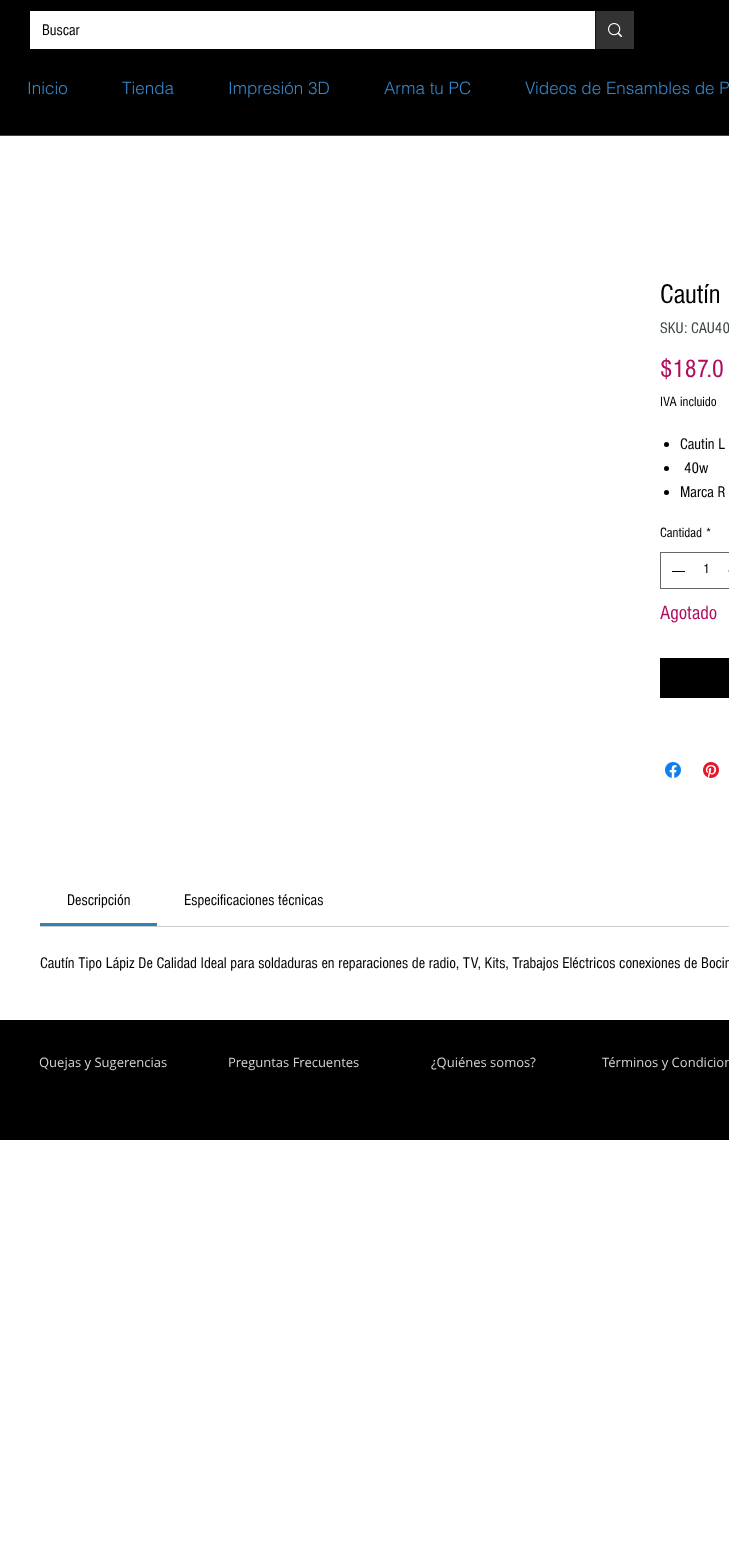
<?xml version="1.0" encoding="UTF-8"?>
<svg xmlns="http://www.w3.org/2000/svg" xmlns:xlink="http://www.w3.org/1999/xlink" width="729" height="1563">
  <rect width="100%" height="100%" fill="#ffffff" />
  <rect width="729" height="135" fill="#000000" />
  <rect y="135" width="729" height="1" fill="#3c4547" />
  <rect x="30" y="11" width="565" height="38" fill="#ffffff" />
  <rect x="596" y="11" width="38" height="38" fill="#333333" />
  <rect x="595" y="11" width="1" height="38" fill="#141414" />
  <image x="608" y="23" width="14" height="14" xlink:href="image1.png" />
  <circle cx="666.5" cy="444.5" r="2.5" fill="#000000" />
  <circle cx="666.5" cy="468.5" r="2.5" fill="#000000" />
  <circle cx="666.5" cy="492.5" r="2.5" fill="#000000" />
  <rect x="660.5" y="552.5" width="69" height="36" fill="none" stroke="#666666" />
  <rect x="672" y="571" width="13" height="1" fill="#000000" />
  <image x="728" y="570" width="1" height="2" xlink:href="image2.png" />
  <rect x="660" y="658" width="69" height="40" fill="#000000" />
  <image x="665" y="762" width="16" height="16" xlink:href="image3.png" />
  <image x="703" y="762" width="16" height="16" xlink:href="image4.png" />
  <rect x="40" y="926" width="689" height="1" fill="#cccccc" />
  <rect x="40" y="923" width="117" height="3" fill="#3182b5" />
  <rect y="1020" width="729" height="120" fill="#000000" />
  <text x="42" y="35" style="font-family: 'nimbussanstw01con'; font-size: 16px; fill: #000000">Buscar</text>
  <text x="27" y="94" style="font-family: helvetica; font-size: 17px; font-weight: 300; fill: #3588cc">Inicio</text>
  <text x="122" y="94" style="font-family: helvetica; font-size: 17px; font-weight: 300; fill: #3588cc">Tienda</text>
  <text x="228" y="94" style="font-family: helvetica; font-size: 17px; font-weight: 300; fill: #3588cc">Impresión 3D</text>
  <text x="384" y="94" style="font-family: helvetica; font-size: 17px; font-weight: 300; fill: #3588cc">Arma tu PC</text>
  <text x="525" y="94" style="font-family: helvetica; font-size: 17px; font-weight: 300; fill: #3588cc">Videos de Ensambles de P</text>
  <text x="660" y="303" style="font-family: 'nimbussanstw01con'; font-size: 28px; fill: #000000">Cautín</text>
  <text x="660" y="333" style="font-family: 'nimbussanstw01con'; font-size: 16px; fill: #3c4547">SKU: CAU40</text>
  <text x="660" y="377" style="font-family: 'nimbussanstw01con'; font-size: 26px; fill: #b00e5c">$187.0</text>
  <text x="660" y="406" style="font-family: 'nimbussanstw01con'; font-size: 14px; fill: #000000">IVA incluido</text>
  <text x="680" y="449" style="font-family: 'nimbussanstw01con'; font-size: 16px; fill: #000000">Cautin L</text>
  <text x="684" y="473" style="font-family: 'nimbussanstw01con'; font-size: 16px; fill: #000000">40w</text>
  <text x="680" y="497" style="font-family: 'nimbussanstw01con'; font-size: 16px; fill: #000000">Marca R</text>
  <text x="660" y="537" style="font-family: 'nimbussanstw01con'; font-size: 14px; fill: #000000">Cantidad</text>
  <text x="706" y="537" style="font-family: 'nimbussanstw01con'; font-size: 14px; fill: #000000">*</text>
  <text x="703" y="573" style="font-family: 'nimbussanstw01con'; font-size: 14px; fill: #000000">1</text>
  <text x="660" y="619" style="font-family: 'nimbussanstw01con'; font-size: 20px; fill: #b00e5c">Agotado</text>
  <text x="67" y="905" style="font-family: 'nimbussanstw01con'; font-size: 16px; fill: #000000">Descripción</text>
  <text x="184" y="905" style="font-family: 'nimbussanstw01con'; font-size: 16px; fill: #000000">Especificaciones técnicas</text>
  <text x="40" y="968" style="font-family: 'nimbussanstw01con'; font-size: 16px; fill: #000000">Cautín Tipo Lápiz De Calidad Ideal para soldaduras en reparaciones de radio, TV, Kits, Trabajos Eléctricos conexiones de Bocin</text>
  <text x="39" y="1067" style="font-family: Open Sans; font-size: 13px; fill: #d4d4d4">Quejas y Sugerencias</text>
  <text x="228" y="1067" style="font-family: Open Sans; font-size: 13px; fill: #d4d4d4">Preguntas Frecuentes</text>
  <text x="431" y="1067" style="font-family: Open Sans; font-size: 13px; fill: #d4d4d4">¿Quiénes somos?</text>
  <text x="602" y="1067" style="font-family: Open Sans; font-size: 13px; fill: #d4d4d4">Términos y Condicion</text>
</svg>
